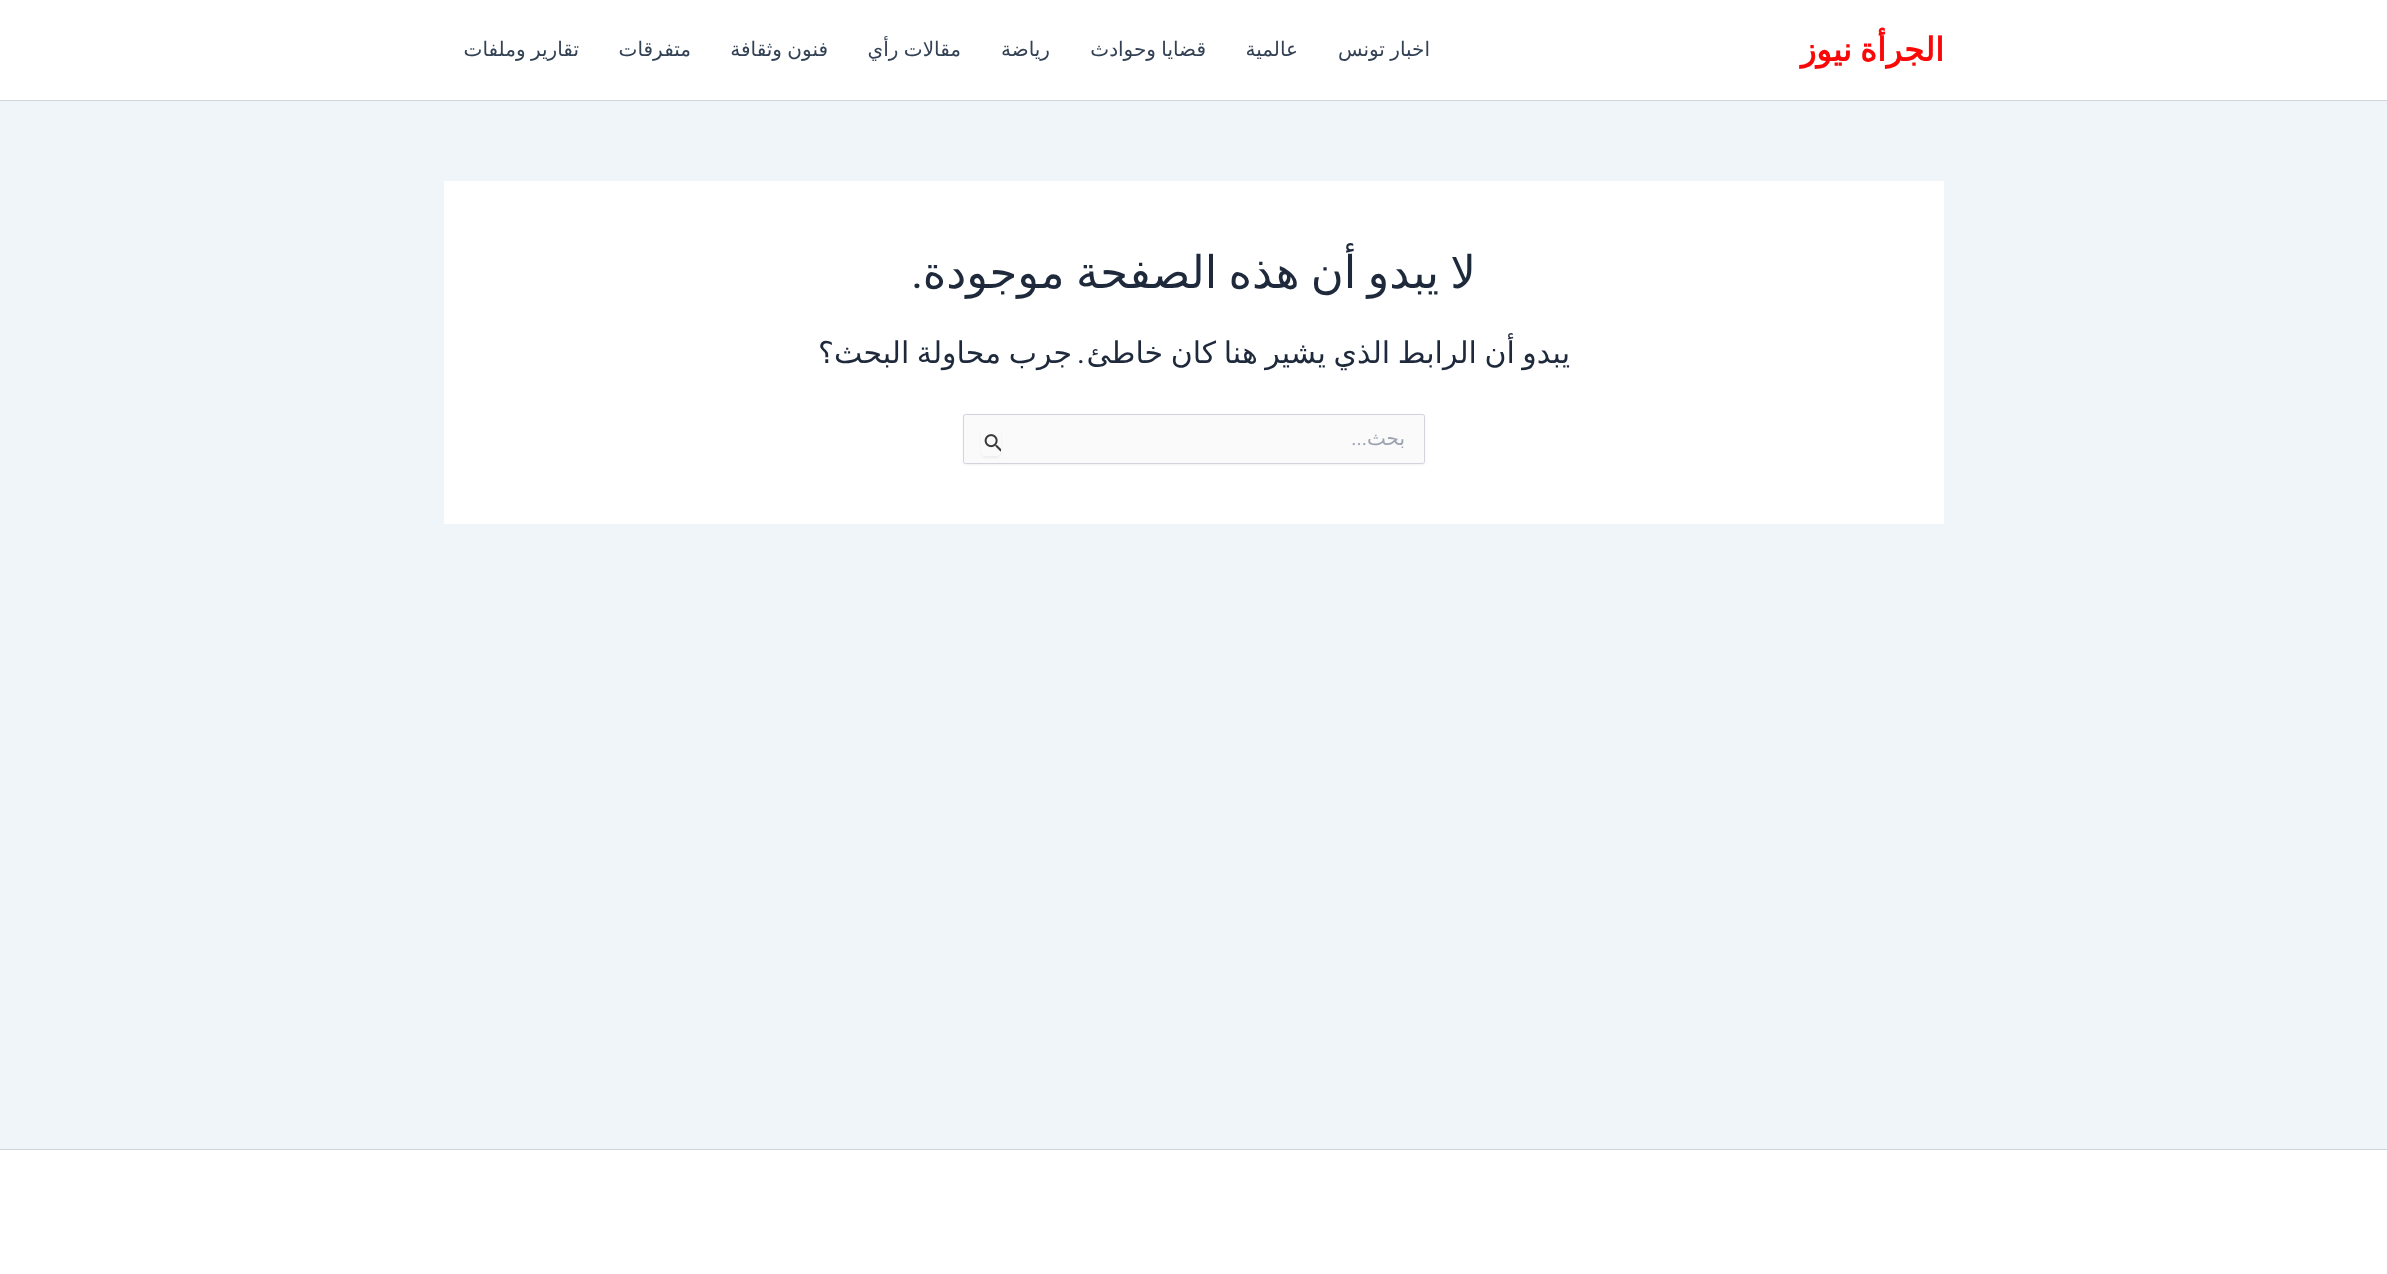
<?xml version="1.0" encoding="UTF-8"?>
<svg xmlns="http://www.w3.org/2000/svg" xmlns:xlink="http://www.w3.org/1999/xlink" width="2387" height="1274">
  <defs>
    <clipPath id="clip1"><path d="M 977 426 h 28 v 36 h -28 z m 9 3 h 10 c 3 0 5 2 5 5 v 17 c 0 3 -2 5 -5 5 h -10 c -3 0 -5 -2 -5 -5 v -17 c 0 -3 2 -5 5 -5 z" clip-rule="evenodd" /></clipPath>
  </defs>
  <rect width="100%" height="100%" fill="#f0f5fa" />
  <rect width="2387" height="100" fill="#ffffff" />
  <rect y="100" width="2387" height="1" fill="#d1d5db" />
  <rect x="444" y="181" width="1500" height="343" fill="#ffffff" />
  <rect x="963" y="415" width="462" height="50" rx="2.5" fill="#000000" fill-opacity="0.05" filter="blur(1px)" />
  <rect x="963.5" y="414.5" width="461" height="49" rx="2" fill="#fafafa" stroke="#d1d5db" />
  <g clip-path="url(#clip1)">
    <rect x="981" y="430" width="20" height="28" rx="5" fill="#000000" fill-opacity="0.05" filter="blur(1px)" />
  </g>
  <image x="984" y="434" width="17" height="18" xlink:href="image1.png" />
  <rect y="1150" width="2387" height="124" fill="#ffffff" />
  <rect y="1149" width="2387" height="1" fill="#d1d5db" />
  <text x="1944" y="61" word-spacing="-2" style="font-family: DejaVu Sans; font-size: 32.5px; font-weight: bold; direction: rtl; fill: #fa0707">الجرأة نيوز</text>
  <text x="1430" y="56" word-spacing="-1" style="font-family: DejaVu Sans; font-size: 20px; direction: rtl; fill: #334155">اخبار تونس</text>
  <text x="1298" y="56" style="font-family: DejaVu Sans; font-size: 20px; direction: rtl; fill: #334155">عالمية</text>
  <text x="1206" y="56" word-spacing="-1" style="font-family: DejaVu Sans; font-size: 20px; direction: rtl; fill: #334155">قضايا وحوادث</text>
  <text x="1050" y="56" style="font-family: DejaVu Sans; font-size: 20px; direction: rtl; fill: #334155">رياضة</text>
  <text x="961" y="56" word-spacing="-1" style="font-family: DejaVu Sans; font-size: 20px; direction: rtl; fill: #334155">مقالات رأي</text>
  <text x="828" y="56" word-spacing="-1" style="font-family: DejaVu Sans; font-size: 20px; direction: rtl; fill: #334155">فنون وثقافة</text>
  <text x="691" y="56" style="font-family: DejaVu Sans; font-size: 20px; direction: rtl; fill: #334155">متفرقات</text>
  <text x="579" y="56" word-spacing="-1" style="font-family: DejaVu Sans; font-size: 20px; direction: rtl; fill: #334155">تقارير وملفات</text>
  <text x="1476" y="288" word-spacing="-3" style="font-family: DejaVu Sans; font-size: 45px; direction: rtl; fill: #1e293b">لا يبدو أن هذه الصفحة موجودة</text>
  <text x="923" y="288" style="font-family: Roboto; font-size: 45px; direction: rtl; fill: #1e293b">.</text>
  <text x="1570" y="363" word-spacing="-2" style="font-family: DejaVu Sans; font-size: 30px; direction: rtl; fill: #1e293b">يبدو أن الرابط الذي يشير هنا كان خاطئ</text>
  <text x="1085" y="363" style="font-family: Roboto; font-size: 30px; direction: rtl; fill: #1e293b">.</text>
  <text x="1072" y="363" word-spacing="-2" style="font-family: DejaVu Sans; font-size: 30px; direction: rtl; fill: #1e293b">جرب محاولة البحث؟</text>
  <text x="1405" y="445" style="font-family: DejaVu Sans; font-size: 20px; direction: rtl; fill: #9ca3af">بحث</text>
  <text x="1367" y="445" style="font-family: Roboto; font-size: 20px; direction: rtl; fill: #9ca3af">...</text>
</svg>
